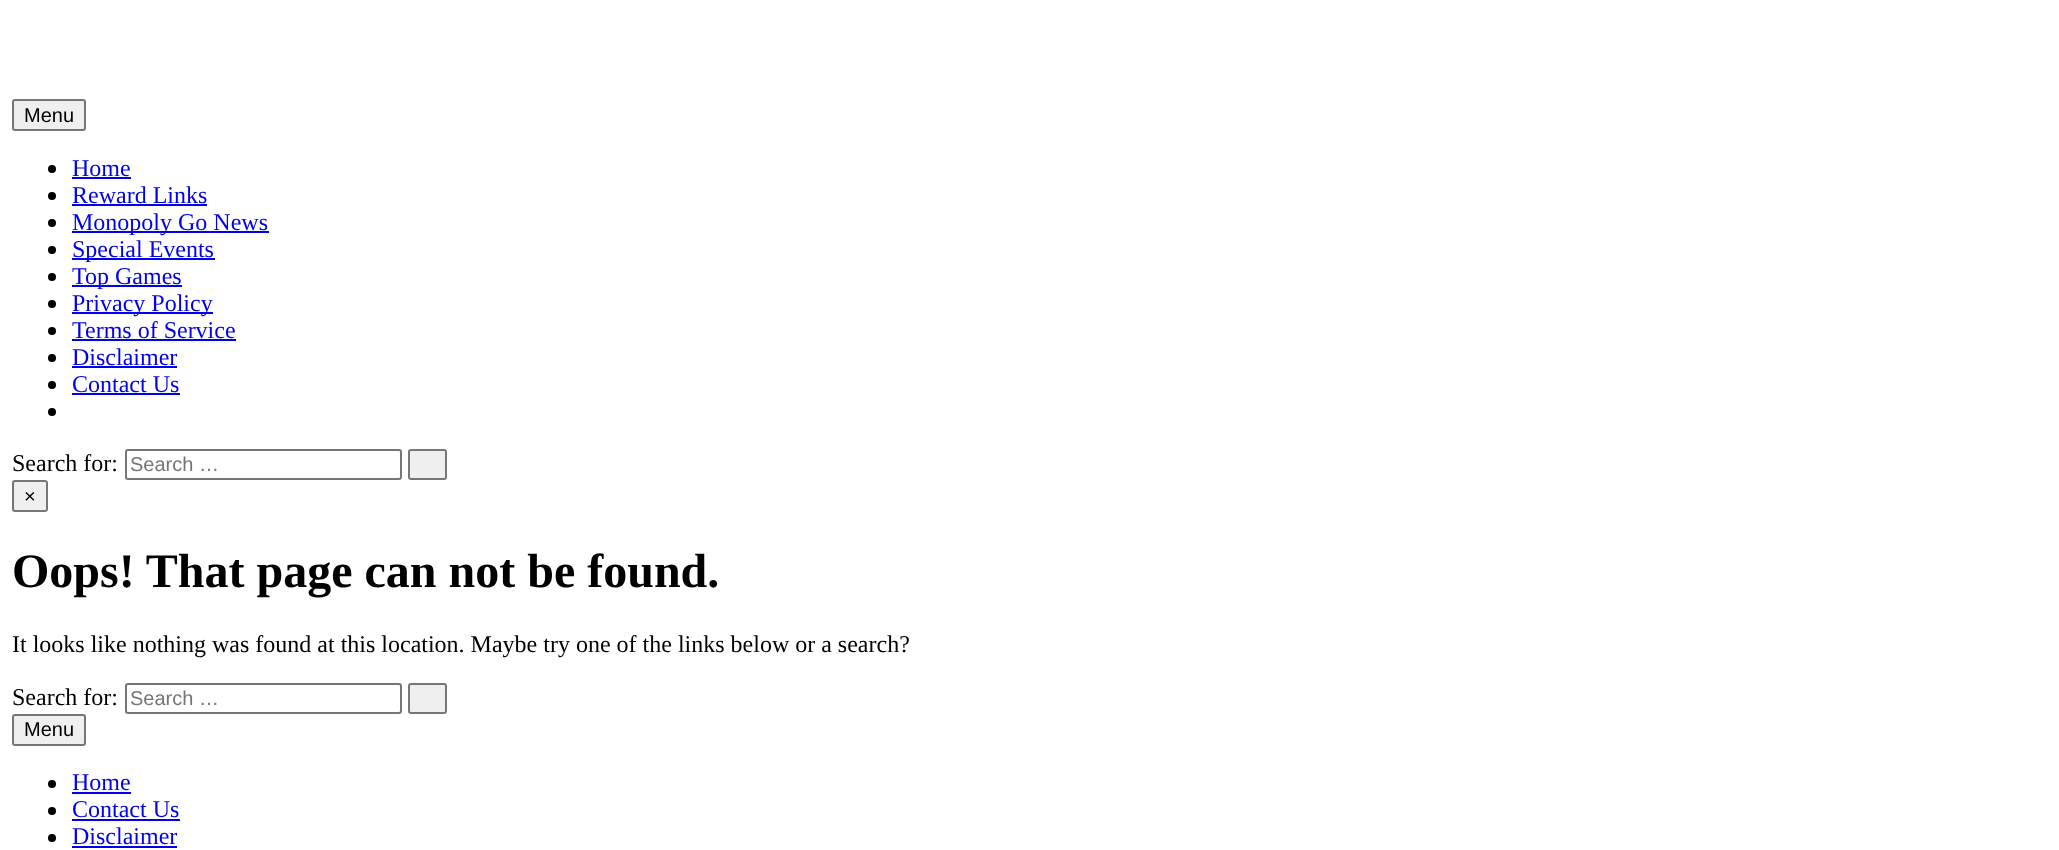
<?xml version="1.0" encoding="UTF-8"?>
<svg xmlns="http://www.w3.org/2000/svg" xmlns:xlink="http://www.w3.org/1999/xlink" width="2059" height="850">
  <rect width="100%" height="100%" fill="#ffffff" />
  <rect x="13" y="100" width="72" height="30" rx="2" fill="#efefef" stroke="#767676" stroke-width="2" />
  <circle cx="52" cy="169" r="4" fill="#000000" />
  <rect x="72" y="177" width="59" height="2" fill="#0000ee" />
  <circle cx="52" cy="196" r="4" fill="#000000" />
  <rect x="72" y="204" width="135" height="2" fill="#0000ee" />
  <circle cx="52" cy="223" r="4" fill="#000000" />
  <rect x="72" y="231" width="197" height="2" fill="#0000ee" />
  <circle cx="52" cy="250" r="4" fill="#000000" />
  <rect x="72" y="258" width="143" height="2" fill="#0000ee" />
  <circle cx="52" cy="277" r="4" fill="#000000" />
  <rect x="72" y="285" width="110" height="2" fill="#0000ee" />
  <circle cx="52" cy="304" r="4" fill="#000000" />
  <rect x="72" y="312" width="141" height="2" fill="#0000ee" />
  <circle cx="52" cy="331" r="4" fill="#000000" />
  <rect x="72" y="339" width="164" height="2" fill="#0000ee" />
  <circle cx="52" cy="358" r="4" fill="#000000" />
  <rect x="72" y="366" width="105" height="2" fill="#0000ee" />
  <circle cx="52" cy="385" r="4" fill="#000000" />
  <rect x="72" y="393" width="108" height="2" fill="#0000ee" />
  <circle cx="52" cy="412" r="4" fill="#000000" />
  <rect x="126" y="450" width="275" height="29" rx="2" fill="none" stroke="#767676" stroke-width="2" />
  <rect x="409" y="450" width="37" height="29" rx="2" fill="#efefef" stroke="#767676" stroke-width="2" />
  <rect x="13" y="481" width="34" height="30" rx="2" fill="#efefef" stroke="#767676" stroke-width="2" />
  <rect x="126" y="684" width="275" height="29" rx="2" fill="none" stroke="#767676" stroke-width="2" />
  <rect x="409" y="684" width="37" height="29" rx="2" fill="#efefef" stroke="#767676" stroke-width="2" />
  <rect x="13" y="715" width="72" height="30" rx="2" fill="#efefef" stroke="#767676" stroke-width="2" />
  <circle cx="52" cy="784" r="4" fill="#000000" />
  <rect x="72" y="792" width="59" height="2" fill="#0000ee" />
  <circle cx="52" cy="811" r="4" fill="#000000" />
  <rect x="72" y="819" width="108" height="2" fill="#0000ee" />
  <circle cx="52" cy="838" r="4" fill="#000000" />
  <rect x="72" y="846" width="105" height="2" fill="#0000ee" />
  <text x="24" y="122" style="font-family: Liberation Sans; font-size: 20px; fill: #000000">Menu</text>
  <text x="72" y="176" style="font-family: Liberation Serif; font-size: 24px; fill: #0000ee">Home</text>
  <text x="72" y="203" style="font-family: Liberation Serif; font-size: 24px; fill: #0000ee">Reward Links</text>
  <text x="72" y="230" style="font-family: Liberation Serif; font-size: 24px; fill: #0000ee">Monopoly Go News</text>
  <text x="72" y="257" style="font-family: Liberation Serif; font-size: 24px; fill: #0000ee">Special Events</text>
  <text x="72" y="284" style="font-family: Liberation Serif; font-size: 24px; fill: #0000ee">Top Games</text>
  <text x="72" y="311" style="font-family: Liberation Serif; font-size: 24px; fill: #0000ee">Privacy Policy</text>
  <text x="72" y="338" style="font-family: Liberation Serif; font-size: 24px; fill: #0000ee">Terms of Service</text>
  <text x="72" y="365" style="font-family: Liberation Serif; font-size: 24px; fill: #0000ee">Disclaimer</text>
  <text x="72" y="392" style="font-family: Liberation Serif; font-size: 24px; fill: #0000ee">Contact Us</text>
  <text x="12" y="471" style="font-family: Liberation Serif; font-size: 24px; fill: #000000">Search for:</text>
  <text x="130" y="471" style="font-family: Liberation Sans; font-size: 20px; fill: #757575">Search …</text>
  <text x="24" y="503" style="font-family: Liberation Sans; font-size: 20px; fill: #000000">×</text>
  <text x="12" y="587" style="font-family: Liberation Serif; font-size: 48px; font-weight: bold; fill: #000000">Oops! That page can not be found.</text>
  <text x="12" y="652" style="font-family: Liberation Serif; font-size: 24px; fill: #000000">It looks like nothing was found at this location. Maybe try one of the links below or a search?</text>
  <text x="12" y="705" style="font-family: Liberation Serif; font-size: 24px; fill: #000000">Search for:</text>
  <text x="130" y="705" style="font-family: Liberation Sans; font-size: 20px; fill: #757575">Search …</text>
  <text x="24" y="736" style="font-family: Liberation Sans; font-size: 20px; fill: #000000">Menu</text>
  <text x="72" y="790" style="font-family: Liberation Serif; font-size: 24px; fill: #0000ee">Home</text>
  <text x="72" y="817" style="font-family: Liberation Serif; font-size: 24px; fill: #0000ee">Contact Us</text>
  <text x="72" y="844" style="font-family: Liberation Serif; font-size: 24px; fill: #0000ee">Disclaimer</text>
</svg>
